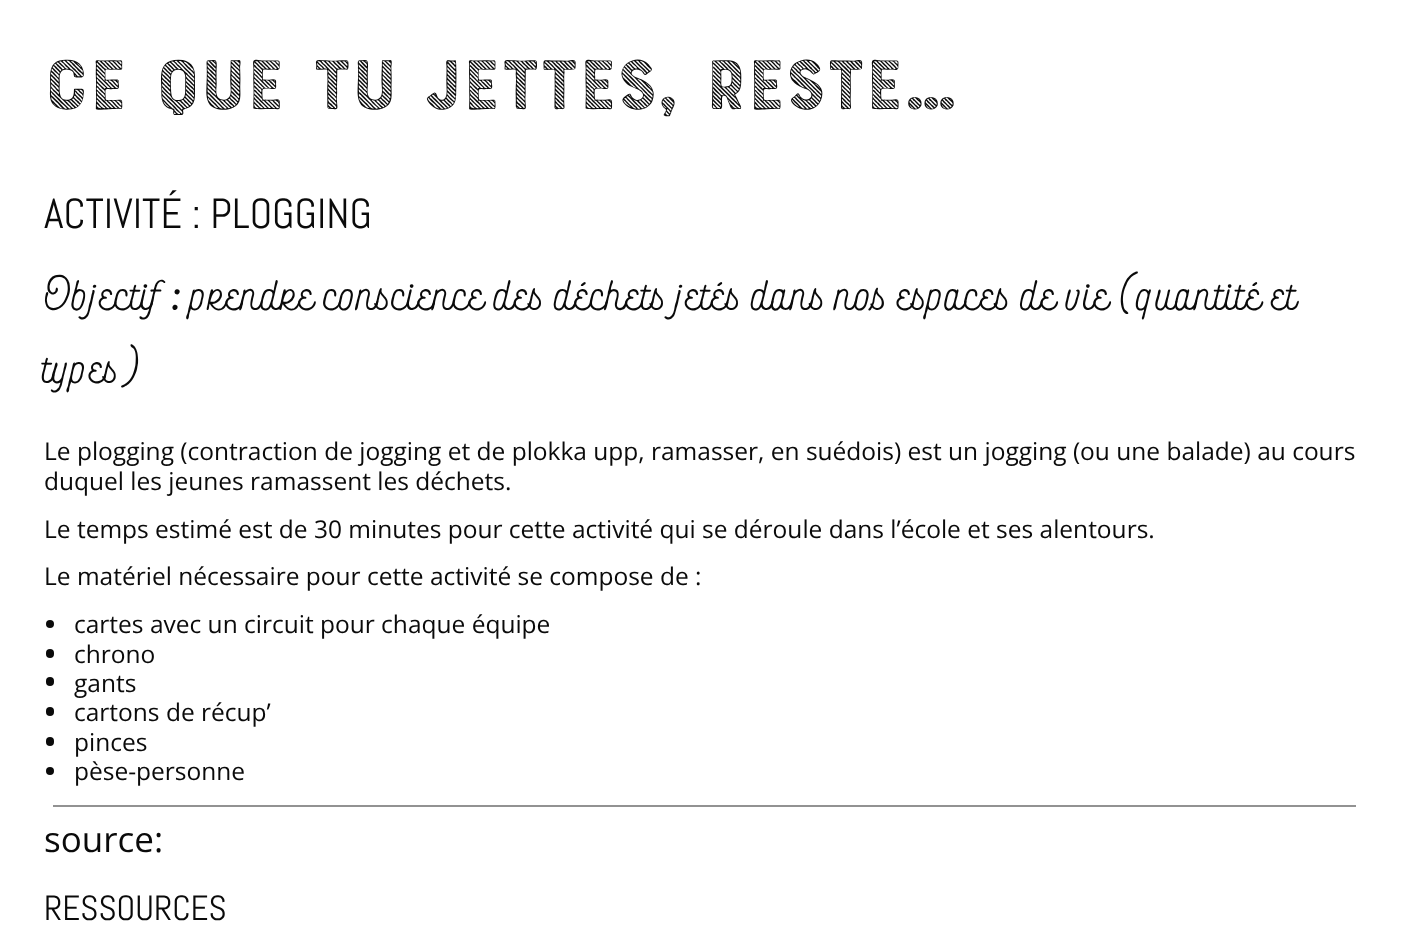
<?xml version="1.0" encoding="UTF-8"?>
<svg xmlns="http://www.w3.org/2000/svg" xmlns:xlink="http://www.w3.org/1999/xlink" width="1408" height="939">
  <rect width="100%" height="100%" fill="#ffffff" />
  <circle cx="50" cy="624" r="4" fill="#0a0a0a" />
  <rect x="46" y="649" width="8" height="9" rx="4" fill="#0a0a0a" />
  <rect x="46" y="677" width="8" height="9" rx="4" fill="#0a0a0a" />
  <rect x="46" y="707" width="8" height="9" rx="4" fill="#0a0a0a" />
  <rect x="46" y="737" width="8" height="9" rx="4" fill="#0a0a0a" />
  <circle cx="50" cy="771" r="4" fill="#0a0a0a" />
  <rect x="53" y="805" width="1303" height="2" fill="#929292" />
  <text x="44" y="109" style="font-family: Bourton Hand; font-size: 73.5px; fill: #0a0a0a">Ce que tu jettes, reste…</text>
  <text x="44" y="228" style="font-family: Abel; font-size: 42px; fill: #0a0a0a">ACTIVITÉ : PLOGGING</text>
  <text x="44" y="310" style="font-family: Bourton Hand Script; font-size: 52.5px; font-weight: bold; fill: #0a0a0a">Objectif : prendre conscience des déchets jetés dans nos espaces de vie (quantité et</text>
  <text x="44" y="383" style="font-family: Bourton Hand Script; font-size: 52.5px; font-weight: bold; fill: #0a0a0a">types)</text>
  <text x="44" y="460" style="font-family: Open Sans; font-size: 24.5px; fill: #0a0a0a">Le plogging (contraction de jogging et de plokka upp, ramasser, en suédois) est un jogging (ou une balade) au cours</text>
  <text x="44" y="490" style="font-family: Open Sans; font-size: 24.5px; fill: #0a0a0a">duquel les jeunes ramassent les déchets.</text>
  <text x="44" y="538" style="font-family: Open Sans; font-size: 24.5px; fill: #0a0a0a">Le temps estimé est de 30 minutes pour cette activité qui se déroule dans l’école et ses alentours.</text>
  <text x="44" y="585" style="font-family: Open Sans; font-size: 24.5px; fill: #0a0a0a">Le matériel nécessaire pour cette activité se compose de :</text>
  <text x="74" y="633" style="font-family: Open Sans; font-size: 24.5px; fill: #0a0a0a">cartes avec un circuit pour chaque équipe</text>
  <text x="74" y="663" style="font-family: Open Sans; font-size: 24.5px; fill: #0a0a0a">chrono</text>
  <text x="74" y="692" style="font-family: Open Sans; font-size: 24.5px; fill: #0a0a0a">gants</text>
  <text x="74" y="721" style="font-family: Open Sans; font-size: 24.5px; fill: #0a0a0a">cartons de récup’</text>
  <text x="74" y="751" style="font-family: Open Sans; font-size: 24.5px; fill: #0a0a0a">pinces</text>
  <text x="74" y="780" style="font-family: Open Sans; font-size: 24.5px; fill: #0a0a0a">pèse-personne</text>
  <text x="44" y="852" style="font-family: Open Sans; font-size: 35px; fill: #0a0a0a">source:</text>
  <text x="44" y="920" style="font-family: Abel; font-size: 35px; fill: #0a0a0a">RESSOURCES</text>
</svg>
